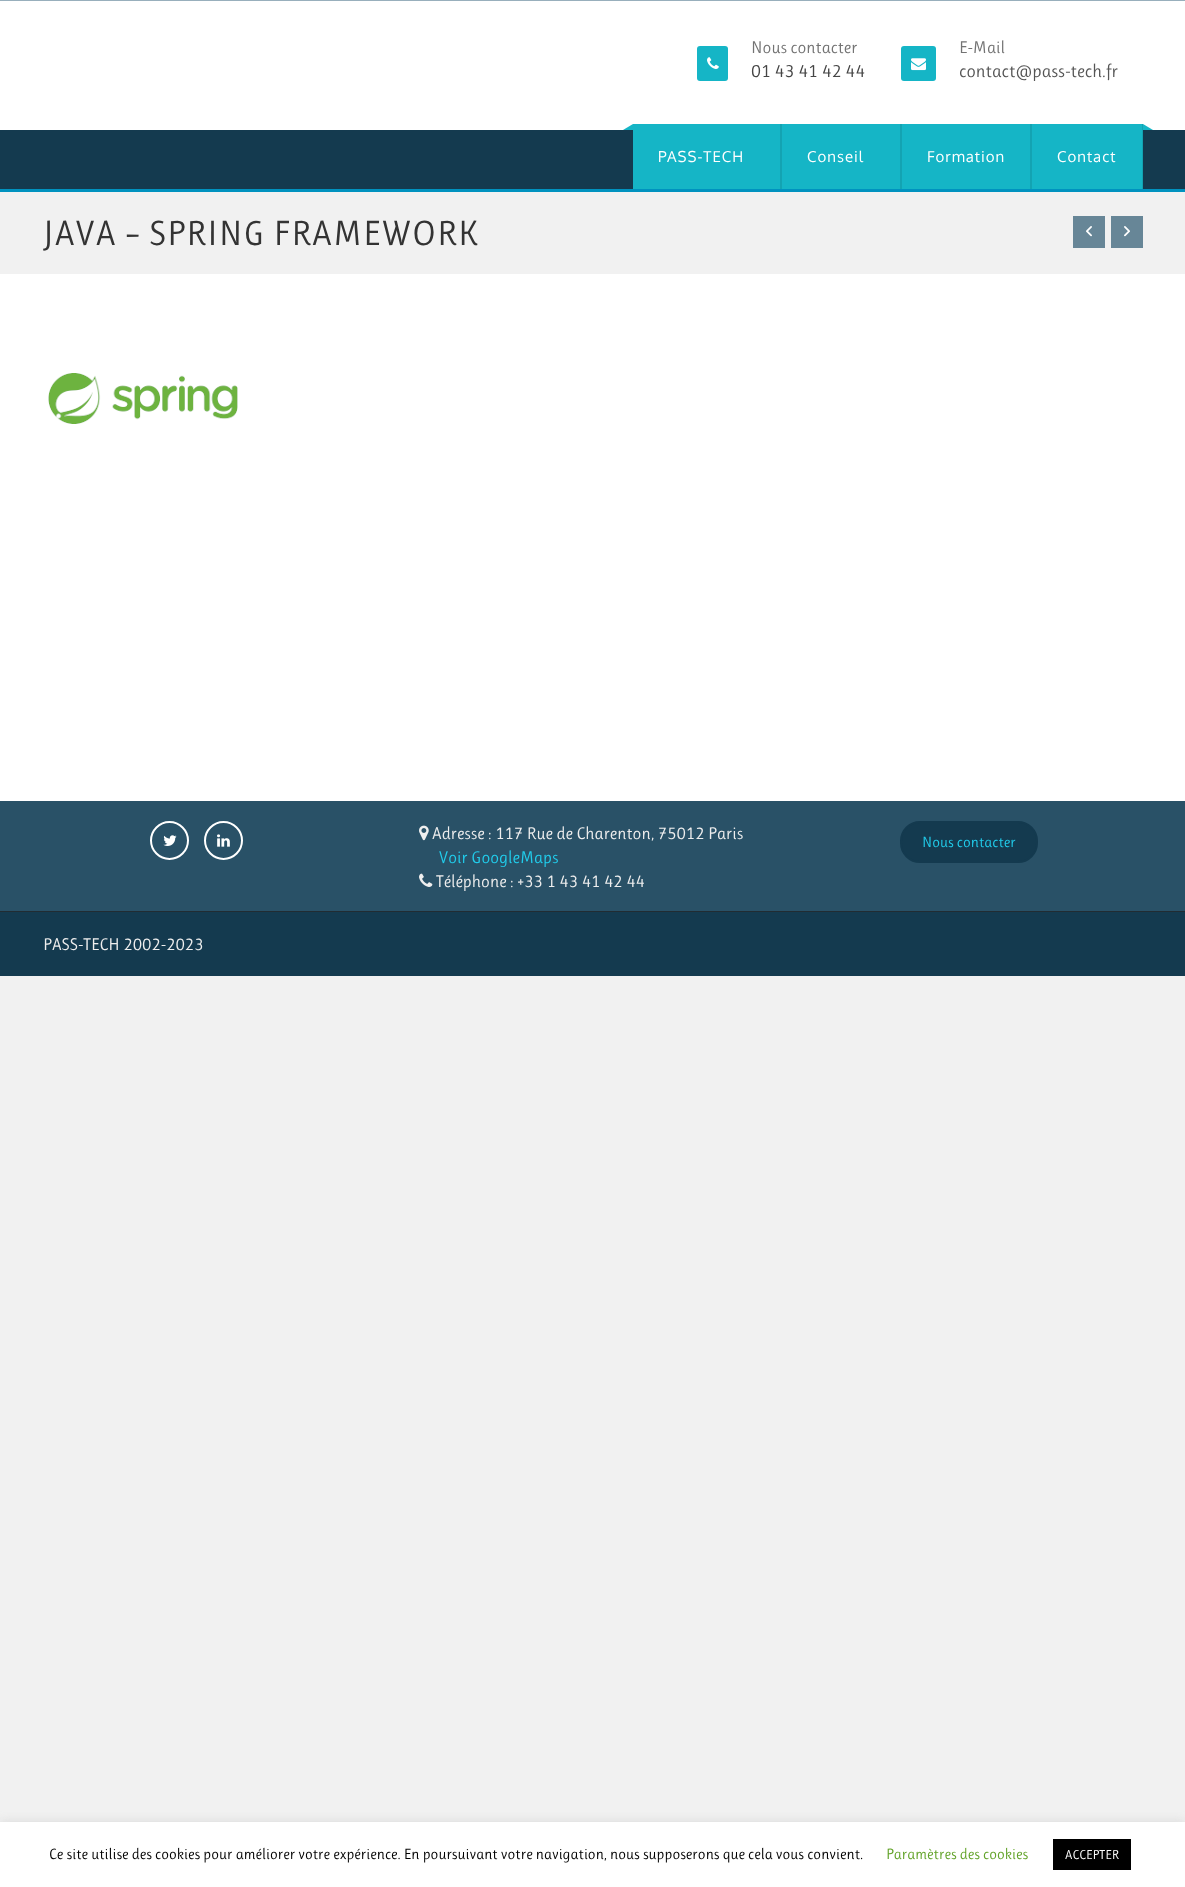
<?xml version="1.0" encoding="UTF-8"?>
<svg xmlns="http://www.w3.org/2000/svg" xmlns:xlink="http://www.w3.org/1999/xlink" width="1185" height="1887">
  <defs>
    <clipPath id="clip1"><rect x="43" y="192" width="1100" height="82" /></clipPath>
  </defs>
  <rect width="100%" height="100%" fill="#f1f1f1" />
  <rect y="1" width="1185" height="129" fill="#ffffff" />
  <rect width="1185" height="1" fill="#98afbc" />
  <rect x="697" y="46" width="31" height="35" rx="3" fill="#15b5c6" />
  <image x="707" y="57" width="12" height="12" xlink:href="image1.png" />
  <rect x="901" y="46" width="35" height="35" rx="3" fill="#15b5c6" />
  <image x="911" y="58" width="15" height="13" xlink:href="image2.png" />
  <rect y="130" width="1185" height="59" fill="#143a4f" />
  <rect y="189" width="1185" height="3" fill="#0092bf" />
  <path d="M 633 124 v 6 h -10 z" fill="#15b5c6" />
  <path d="M 1153 130 h -10 v -6 z" fill="#15b5c6" />
  <rect x="633" y="124" width="147" height="65" fill="#15b5c6" />
  <rect x="780" y="124" width="2" height="65" fill="#13a3b2" />
  <rect x="782" y="124" width="118" height="65" fill="#15b5c6" />
  <rect x="900" y="124" width="2" height="65" fill="#13a3b2" />
  <rect x="902" y="124" width="128" height="65" fill="#15b5c6" />
  <rect x="1030" y="124" width="2" height="65" fill="#13a3b2" />
  <rect x="1032" y="124" width="110" height="65" fill="#15b5c6" />
  <rect x="1142" y="124" width="1" height="65" fill="#13a3b2" />
  <rect x="1073" y="216" width="32" height="32" fill="#678697" />
  <image x="1086" y="226" width="6" height="11" xlink:href="image3.png" />
  <rect x="1111" y="216" width="32" height="32" fill="#678697" />
  <image x="1124" y="226" width="6" height="11" xlink:href="image4.png" />
  <rect y="274" width="1185" height="527" fill="#ffffff" />
  <image x="48" y="373" width="190" height="51" xlink:href="image5.png" />
  <rect y="801" width="1185" height="110" fill="#295167" />
  <circle cx="169.5" cy="840.5" r="18.5" fill="none" stroke="#ffffff" stroke-width="2" />
  <image x="163" y="835" width="14" height="11" xlink:href="image6.png" />
  <circle cx="223.5" cy="840.5" r="18.5" fill="none" stroke="#ffffff" stroke-width="2" />
  <image x="217" y="834" width="13" height="13" xlink:href="image7.png" />
  <image x="419" y="825" width="10" height="16" xlink:href="image8.png" />
  <image x="419" y="873" width="14" height="14" xlink:href="image9.png" />
  <rect x="901" y="822" width="136" height="40" rx="19" fill="#143a4f" stroke="#143a4f" stroke-width="2" />
  <rect y="912" width="1185" height="64" fill="#143a4f" />
  <rect y="911" width="1185" height="1" fill="#212c33" />
  <rect y="1821" width="1185" height="65" fill="#acabab" fill-opacity="0.3" filter="blur(5px)" />
  <rect y="1822" width="1185" height="65" fill="#ffffff" />
  <rect x="1053" y="1839" width="78" height="31" fill="#000000" />
  <text x="751" y="53" style="font-family: Ruluko; font-size: 17px; fill: #737373">Nous contacter</text>
  <text x="751" y="77" style="font-family: Ruluko; font-size: 18px; fill: #454545">01 43 41 42 44</text>
  <text x="959" y="53" style="font-family: Ruluko; font-size: 17px; fill: #737373">E-Mail</text>
  <text x="959" y="77" style="font-family: Ruluko; font-size: 18px; fill: #555555">contact@pass-tech.fr</text>
  <text x="658" y="162" style="font-family: Oxygen; font-size: 15px; letter-spacing: 1px; fill: #ffffff">PASS-TECH</text>
  <text x="807" y="162" style="font-family: Oxygen; font-size: 15px; letter-spacing: 1px; fill: #ffffff">Conseil</text>
  <text x="927" y="162" style="font-family: Oxygen; font-size: 15px; letter-spacing: 1px; fill: #ffffff">Formation</text>
  <text x="1057" y="162" style="font-family: Oxygen; font-size: 15px; letter-spacing: 1px; fill: #ffffff">Contact</text>
  <g clip-path="url(#clip1)">
    <text x="43" y="245" style="font-family: Ruluko; font-size: 35px; letter-spacing: 1px; fill: #333333">JAVA – SPRING FRAMEWORK</text>
  </g>
  <text x="432" y="839" style="font-family: Ruluko; font-size: 17px; fill: #eeeeee">Adresse : 117 Rue de Charenton, 75012 Paris</text>
  <text x="439" y="863" style="font-family: Ruluko; font-size: 17px; fill: #21cdec">Voir GoogleMaps</text>
  <text x="436" y="887" style="font-family: Ruluko; font-size: 17px; fill: #eeeeee">Téléphone : +33 1 43 41 42 44</text>
  <text x="922" y="847" style="font-family: Ruluko; font-size: 15px; fill: #21cdec">Nous contacter</text>
  <text x="43" y="950" style="font-family: Ruluko; font-size: 17px; fill: #eeeeee">PASS-TECH 2002-2023</text>
  <text x="49" y="1859" style="font-family: Ruluko; font-size: 15px; fill: #000000">Ce site utilise des cookies pour améliorer votre expérience. En poursuivant votre navigation, nous supposerons que cela vous convient.</text>
  <text x="886" y="1859" style="font-family: Ruluko; font-size: 15px; fill: #62a329">Paramètres des cookies</text>
  <text x="1065" y="1859" style="font-family: Ruluko; font-size: 13px; fill: #ffffff">ACCEPTER</text>
</svg>
